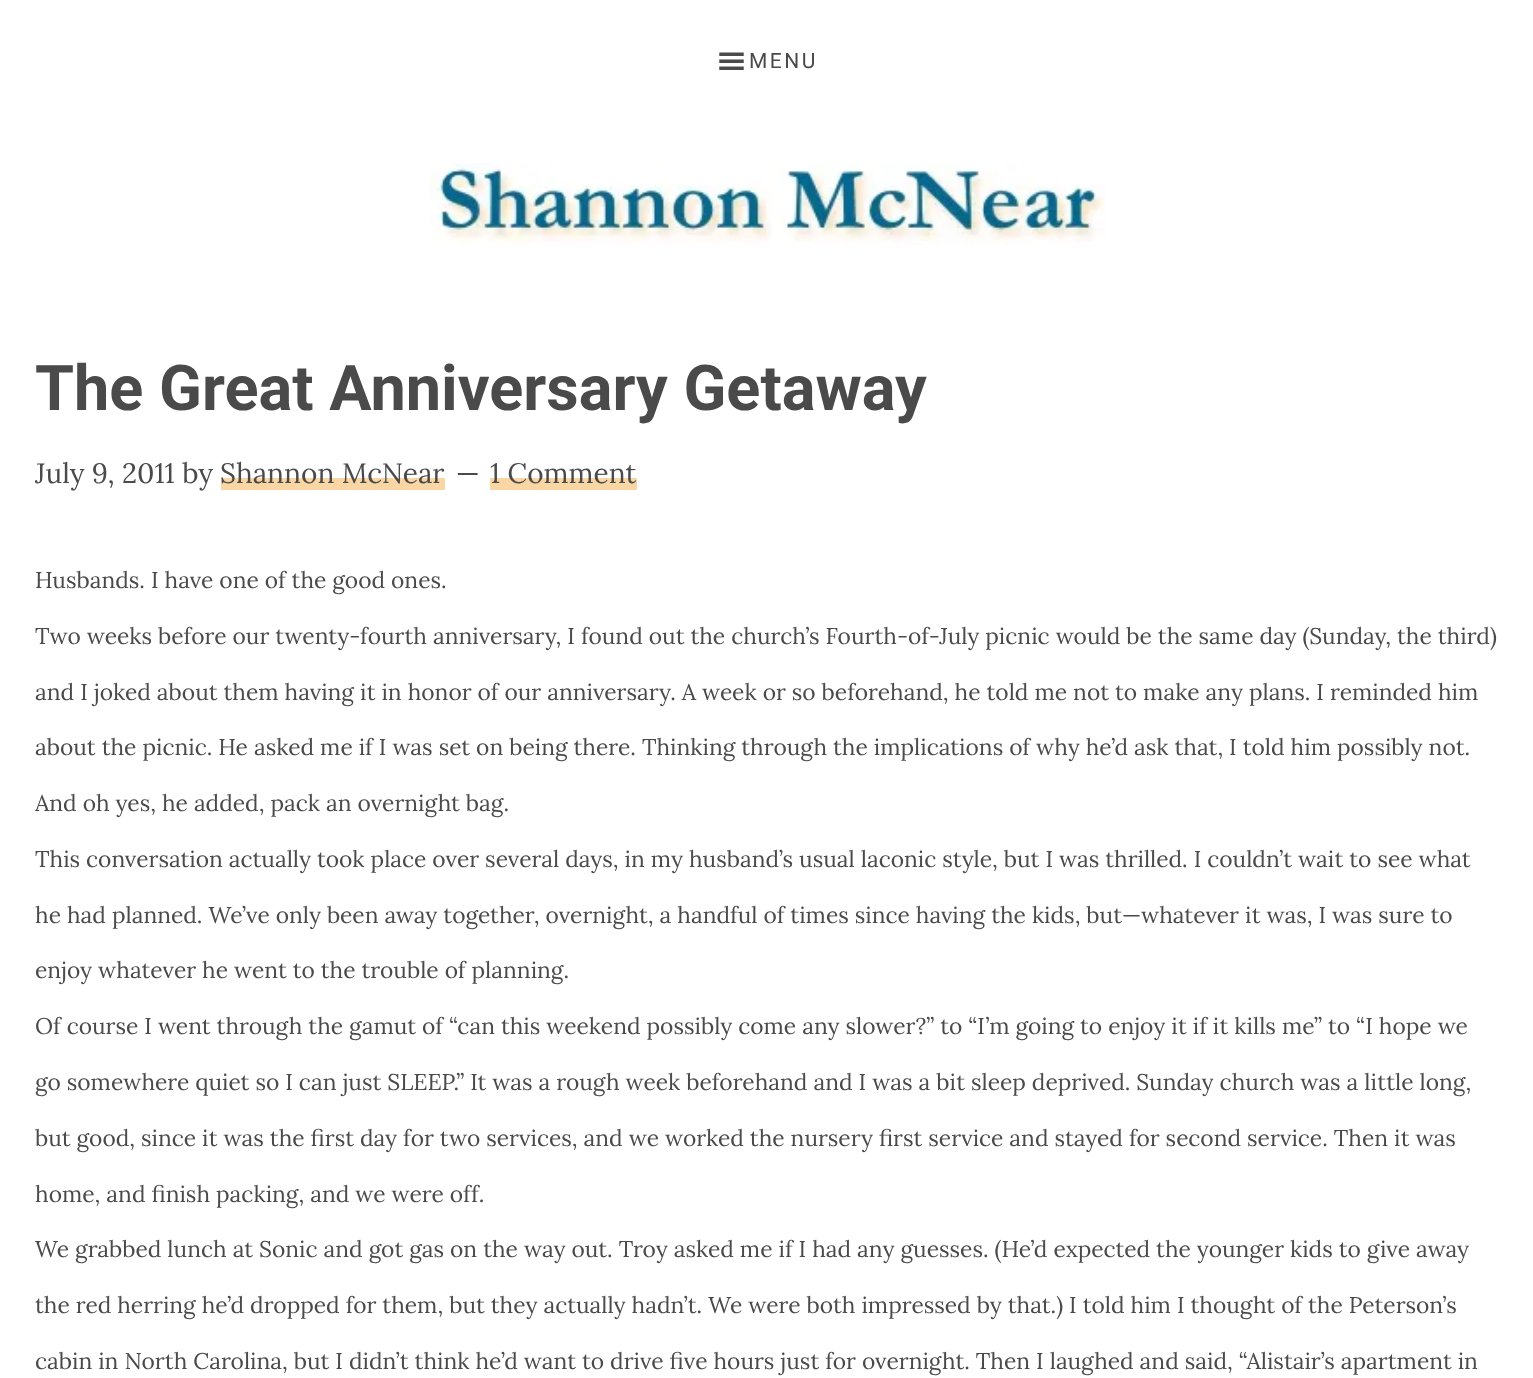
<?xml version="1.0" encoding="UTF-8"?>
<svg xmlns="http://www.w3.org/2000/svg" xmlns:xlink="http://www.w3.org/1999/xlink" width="1533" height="1378">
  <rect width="100%" height="100%" fill="#ffffff" />
  <image x="719" y="52" width="25" height="18" xlink:href="image1.png" />
  <image x="429" y="163" width="676" height="82" xlink:href="image2.png" />
  <rect x="221" y="478" width="224" height="12" fill="#fad6a5" />
  <rect x="490" y="478" width="147" height="12" fill="#fad6a5" />
  <text x="749" y="68" style="font-family: Roboto; font-size: 21px; letter-spacing: 2.5px; fill: #4a4a4a">MENU</text>
  <text x="35" y="410" style="font-family: Roboto; font-size: 63px; font-weight: bold; fill: #4a4a4a">The Great Anniversary Getaway</text>
  <text x="35" y="483" style="font-family: Lora; font-size: 28px; fill: #4a4a4a">July 9, 2011 by</text>
  <text x="220" y="483" style="font-family: Lora; font-size: 28px; fill: #4a4a4a">Shannon McNear</text>
  <text x="456" y="483" style="font-family: Lora; font-size: 28px; fill: #4a4a4a">—</text>
  <text x="490" y="483" style="font-family: Lora; font-size: 28px; fill: #4a4a4a">1 Comment</text>
  <text x="35" y="588" style="font-family: Lora; font-size: 22.75px; fill: #4a4a4a">Husbands. I have one of the good ones.</text>
  <text x="35" y="644" style="font-family: Lora; font-size: 22.75px; fill: #4a4a4a">Two weeks before our twenty-fourth anniversary, I found out the church’s Fourth-of-July picnic would be the same day (Sunday, the third)</text>
  <text x="35" y="700" style="font-family: Lora; font-size: 22.75px; fill: #4a4a4a">and I joked about them having it in honor of our anniversary. A week or so beforehand, he told me not to make any plans. I reminded him</text>
  <text x="35" y="755" style="font-family: Lora; font-size: 22.75px; fill: #4a4a4a">about the picnic. He asked me if I was set on being there. Thinking through the implications of why he’d ask that, I told him possibly not.</text>
  <text x="35" y="811" style="font-family: Lora; font-size: 22.75px; fill: #4a4a4a">And oh yes, he added, pack an overnight bag.</text>
  <text x="35" y="867" style="font-family: Lora; font-size: 22.75px; fill: #4a4a4a">This conversation actually took place over several days, in my husband’s usual laconic style, but I was thrilled. I couldn’t wait to see what</text>
  <text x="35" y="923" style="font-family: Lora; font-size: 22.75px; fill: #4a4a4a">he had planned. We’ve only been away together, overnight, a handful of times since having the kids, but—whatever it was, I was sure to</text>
  <text x="35" y="978" style="font-family: Lora; font-size: 22.75px; fill: #4a4a4a">enjoy whatever he went to the trouble of planning.</text>
  <text x="35" y="1034" style="font-family: Lora; font-size: 22.75px; fill: #4a4a4a">Of course I went through the gamut of “can this weekend possibly come any slower?” to “I’m going to enjoy it if it kills me” to “I hope we</text>
  <text x="35" y="1090" style="font-family: Lora; font-size: 22.75px; fill: #4a4a4a">go somewhere quiet so I can just SLEEP.” It was a rough week beforehand and I was a bit sleep deprived. Sunday church was a little long,</text>
  <text x="35" y="1146" style="font-family: Lora; font-size: 22.75px; fill: #4a4a4a">but good, since it was the first day for two services, and we worked the nursery first service and stayed for second service. Then it was</text>
  <text x="35" y="1202" style="font-family: Lora; font-size: 22.75px; fill: #4a4a4a">home, and finish packing, and we were off.</text>
  <text x="35" y="1257" style="font-family: Lora; font-size: 22.75px; fill: #4a4a4a">We grabbed lunch at Sonic and got gas on the way out. Troy asked me if I had any guesses. (He’d expected the younger kids to give away</text>
  <text x="35" y="1313" style="font-family: Lora; font-size: 22.75px; fill: #4a4a4a">the red herring he’d dropped for them, but they actually hadn’t. We were both impressed by that.) I told him I thought of the Peterson’s</text>
  <text x="35" y="1369" style="font-family: Lora; font-size: 22.75px; fill: #4a4a4a">cabin in North Carolina, but I didn’t think he’d want to drive five hours just for overnight. Then I laughed and said, “Alistair’s apartment in</text>
</svg>
